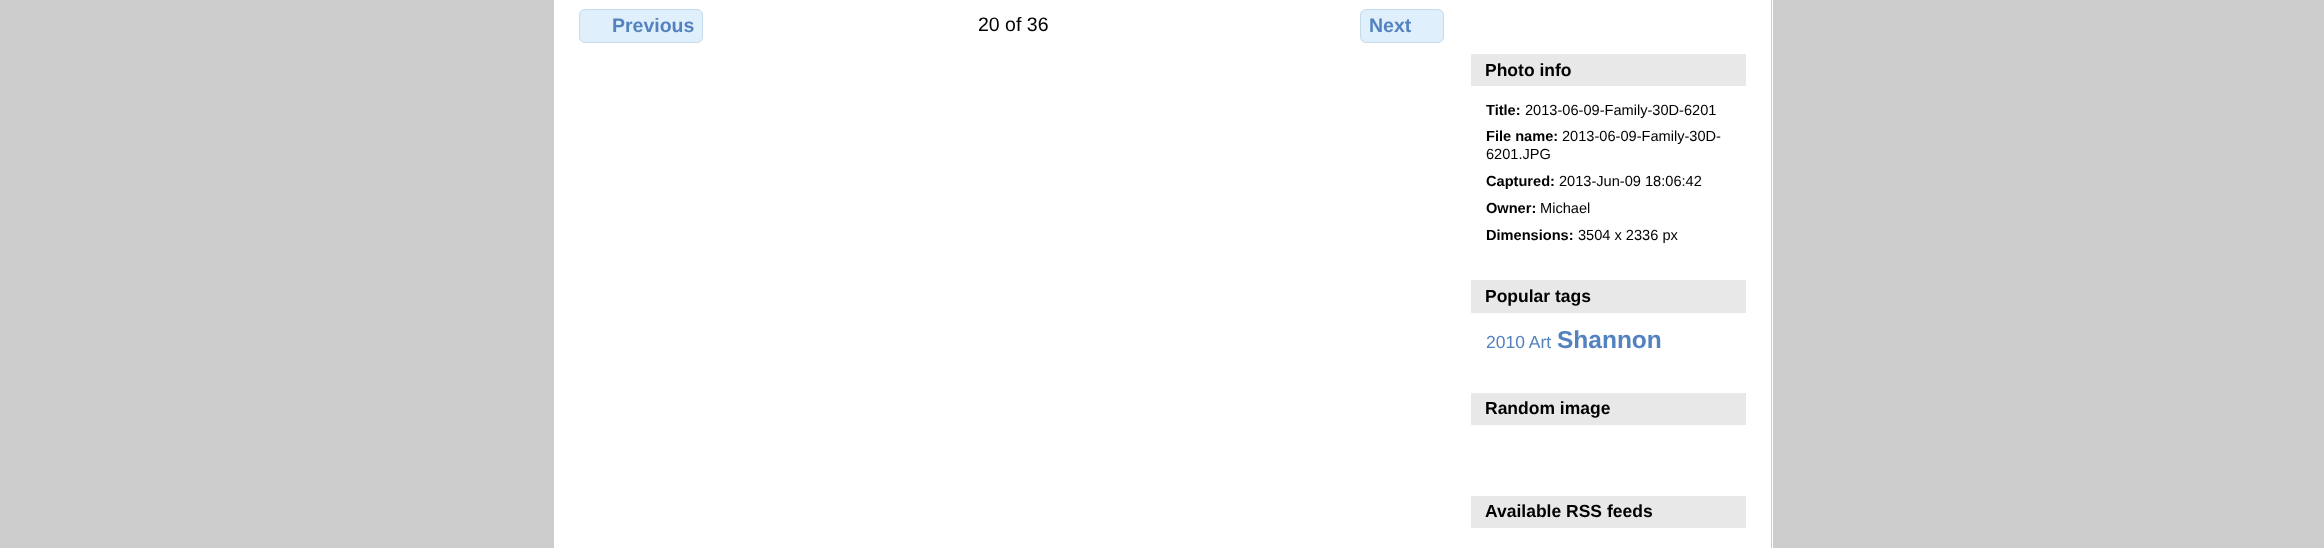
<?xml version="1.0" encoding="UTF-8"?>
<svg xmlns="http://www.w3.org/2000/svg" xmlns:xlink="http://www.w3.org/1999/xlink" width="2324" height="548">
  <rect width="100%" height="100%" fill="#cccccc" />
  <rect x="554" width="1219" height="548" fill="#ffffff" />
  <rect x="1771" width="1" height="548" fill="#cccccc" />
  <rect x="579.5" y="9.5" width="123" height="33" rx="5.5" fill="#dfeffc" stroke="#c5dbec" />
  <rect x="1360.5" y="9.5" width="83" height="33" rx="5.5" fill="#dfeffc" stroke="#c5dbec" />
  <rect x="1471" y="54" width="275" height="32" fill="#e8e8e8" />
  <rect x="1471" y="280" width="275" height="33" fill="#e8e8e8" />
  <rect x="1471" y="393" width="275" height="32" fill="#e8e8e8" />
  <rect x="1471" y="496" width="275" height="32" fill="#e8e8e8" />
  <text x="612" y="32" style="font-family: Liberation Sans; font-size: 19.5px; font-weight: bold; fill: #5382bf">Previous</text>
  <text x="978" y="31" style="font-family: Liberation Sans; font-size: 19.5px; fill: #000000">20 of 36</text>
  <text x="1369" y="32" style="font-family: Liberation Sans; font-size: 19.5px; font-weight: bold; fill: #5382bf">Next</text>
  <text x="1485" y="76" style="font-family: Liberation Sans; font-size: 17.5px; font-weight: bold; fill: #000000">Photo info</text>
  <text x="1486" y="115" style="font-family: Liberation Sans; font-size: 14.6px; font-weight: bold; fill: #000000">Title:</text>
  <text x="1525" y="115" style="font-family: Liberation Sans; font-size: 14.6px; fill: #000000">2013-06-09-Family-30D-6201</text>
  <text x="1486" y="141" style="font-family: Liberation Sans; font-size: 14.6px; font-weight: bold; fill: #000000">File name:</text>
  <text x="1562" y="141" style="font-family: Liberation Sans; font-size: 14.6px; fill: #000000">2013-06-09-Family-30D-</text>
  <text x="1486" y="159" style="font-family: Liberation Sans; font-size: 14.6px; fill: #000000">6201.JPG</text>
  <text x="1486" y="186" style="font-family: Liberation Sans; font-size: 14.6px; font-weight: bold; fill: #000000">Captured:</text>
  <text x="1559" y="186" style="font-family: Liberation Sans; font-size: 14.6px; fill: #000000">2013-Jun-09 18:06:42</text>
  <text x="1486" y="213" style="font-family: Liberation Sans; font-size: 14.6px; font-weight: bold; fill: #000000">Owner:</text>
  <text x="1540" y="213" style="font-family: Liberation Sans; font-size: 14.6px; fill: #000000">Michael</text>
  <text x="1486" y="240" style="font-family: Liberation Sans; font-size: 14.6px; font-weight: bold; fill: #000000">Dimensions:</text>
  <text x="1578" y="240" style="font-family: Liberation Sans; font-size: 14.6px; fill: #000000">3504 x 2336 px</text>
  <text x="1485" y="302" style="font-family: Liberation Sans; font-size: 17.5px; font-weight: bold; fill: #000000">Popular tags</text>
  <text x="1486" y="348" style="font-family: Liberation Sans; font-size: 17.5px; fill: #5382bf">2010 Art</text>
  <text x="1557" y="348" style="font-family: Liberation Sans; font-size: 24.5px; font-weight: bold; fill: #5382bf">Shannon</text>
  <text x="1485" y="414" style="font-family: Liberation Sans; font-size: 17.5px; font-weight: bold; fill: #000000">Random image</text>
  <text x="1485" y="517" style="font-family: Liberation Sans; font-size: 17.5px; font-weight: bold; fill: #000000">Available RSS feeds</text>
</svg>
